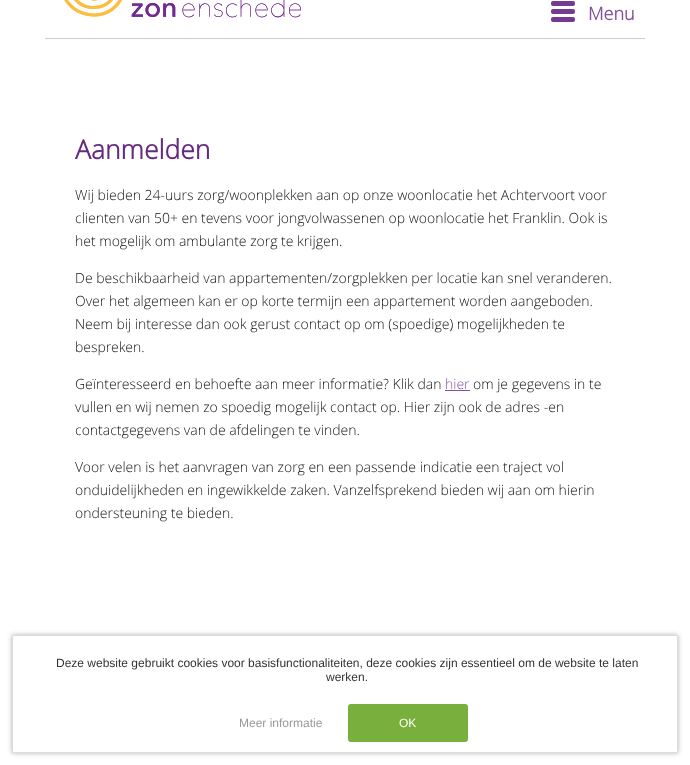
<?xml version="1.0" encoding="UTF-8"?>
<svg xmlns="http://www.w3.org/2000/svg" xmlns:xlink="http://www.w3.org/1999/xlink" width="690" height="765">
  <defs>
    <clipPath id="clip1"><path d="M 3 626 h 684 v 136 h -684 z m 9 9 h 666 v 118 h -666 z" clip-rule="evenodd" /></clipPath>
  </defs>
  <rect width="100%" height="100%" fill="#ffffff" />
  <image x="64" y="0" width="237" height="18" xlink:href="image1.png" />
  <rect x="45" y="38" width="600" height="1" fill="#cccccc" />
  <rect x="551" y="1" width="24" height="5" rx="2" fill="#753a91" />
  <rect x="551" y="9" width="24" height="5" rx="2" fill="#753a91" />
  <rect x="551" y="17" width="24" height="5" rx="2" fill="#753a91" />
  <rect x="445" y="390" width="25" height="1" fill="#85509e" />
  <g clip-path="url(#clip1)">
    <rect x="12" y="635" width="666" height="118" fill="#000000" fill-opacity="0.3" filter="blur(2.5px)" />
  </g>
  <rect x="12.5" y="635.5" width="665" height="117" fill="none" stroke="#dddddd" />
  <rect x="349" y="705" width="118" height="36" rx="2" fill="#79af3c" stroke="#79af3c" stroke-width="2" />
  <text x="588" y="20" style="font-family: Open Sans; font-size: 18px; font-weight: bold; fill: #85509e">Menu</text>
  <text x="75" y="159" style="font-family: Open Sans; font-size: 26.5px; font-weight: bold; fill: #662b81">Aanmelden</text>
  <text x="75" y="200" style="font-family: Open Sans; font-size: 14px; font-weight: 300; fill: #111111">Wij bieden 24-uurs zorg/woonplekken aan op onze woonlocatie het Achtervoort voor</text>
  <text x="75" y="223" style="font-family: Open Sans; font-size: 14px; font-weight: 300; fill: #111111">clienten van 50+ en tevens voor jongvolwassenen op woonlocatie het Franklin. Ook is</text>
  <text x="75" y="246" style="font-family: Open Sans; font-size: 14px; font-weight: 300; fill: #111111">het mogelijk om ambulante zorg te krijgen.</text>
  <text x="75" y="283" style="font-family: Open Sans; font-size: 14px; font-weight: 300; fill: #111111">De beschikbaarheid van appartementen/zorgplekken per locatie kan snel veranderen.</text>
  <text x="75" y="306" style="font-family: Open Sans; font-size: 14px; font-weight: 300; fill: #111111">Over het algemeen kan er op korte termijn een appartement worden aangeboden.</text>
  <text x="75" y="329" style="font-family: Open Sans; font-size: 14px; font-weight: 300; fill: #111111">Neem bij interesse dan ook gerust contact op om (spoedige) mogelijkheden te</text>
  <text x="75" y="352" style="font-family: Open Sans; font-size: 14px; font-weight: 300; fill: #111111">bespreken.</text>
  <text x="75" y="389" style="font-family: Open Sans; font-size: 14px; font-weight: 300; fill: #111111">Geïnteresseerd en behoefte aan meer informatie? Klik dan</text>
  <text x="445" y="389" style="font-family: Open Sans; font-size: 14px; font-weight: 300; fill: #85509e">hier</text>
  <text x="473" y="389" style="font-family: Open Sans; font-size: 14px; font-weight: 300; fill: #111111">om je gegevens in te</text>
  <text x="75" y="412" style="font-family: Open Sans; font-size: 14px; font-weight: 300; fill: #111111">vullen en wij nemen zo spoedig mogelijk contact op. Hier zijn ook de adres -en</text>
  <text x="75" y="435" style="font-family: Open Sans; font-size: 14px; font-weight: 300; fill: #111111">contactgegevens van de afdelingen te vinden.</text>
  <text x="75" y="472" style="font-family: Open Sans; font-size: 14px; font-weight: 300; fill: #111111">Voor velen is het aanvragen van zorg en een passende indicatie een traject vol</text>
  <text x="75" y="495" style="font-family: Open Sans; font-size: 14px; font-weight: 300; fill: #111111">onduidelijkheden en ingewikkelde zaken. Vanzelfsprekend bieden wij aan om hierin</text>
  <text x="75" y="518" style="font-family: Open Sans; font-size: 14px; font-weight: 300; fill: #111111">ondersteuning te bieden.</text>
  <text x="56" y="667" style="font-family: Liberation Sans; font-size: 12px; fill: #333333">Deze website gebruikt cookies voor basisfunctionaliteiten, deze cookies zijn essentieel om de website te laten</text>
  <text x="326" y="681" style="font-family: Liberation Sans; font-size: 12px; fill: #333333">werken.</text>
  <text x="239" y="727" style="font-family: Liberation Sans; font-size: 12px; fill: #999999">Meer informatie</text>
  <text x="399" y="727" style="font-family: Liberation Sans; font-size: 12px; fill: #ffffff">OK</text>
</svg>
